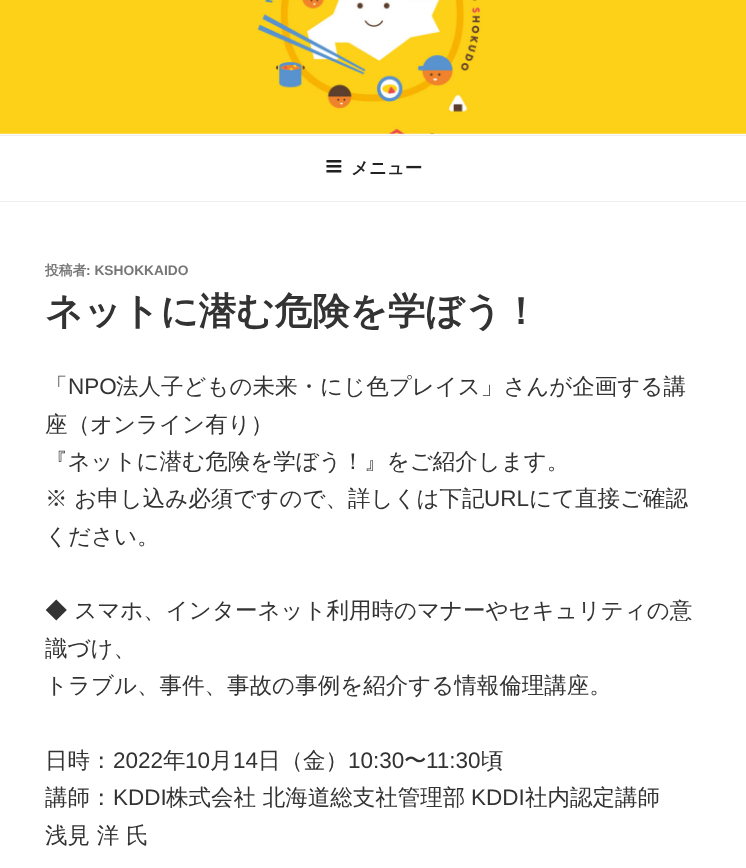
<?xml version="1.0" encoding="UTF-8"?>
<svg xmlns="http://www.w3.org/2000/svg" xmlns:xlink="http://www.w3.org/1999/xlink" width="746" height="868">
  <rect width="100%" height="100%" fill="#ffffff" />
  <rect y="133" width="746" height="2" fill="#fafafa" />
  <image x="0" y="0" width="746" height="134" xlink:href="image1.png" />
  <rect y="135" width="746" height="1" fill="#eeeeee" />
  <rect y="201" width="746" height="1" fill="#eeeeee" />
  <image x="326" y="160" width="16" height="13" xlink:href="image2.png" />
  <text x="351" y="174" style="font-family: WenQuanYi Zen Hei; font-size: 17.5px; font-weight: bold; fill: #222222">メニュー</text>
  <text x="45" y="275" style="font-family: WenQuanYi Zen Hei; font-size: 13.75px; font-weight: bold; fill: #767676">投稿者</text>
  <text x="86" y="275" style="font-family: Liberation Sans; font-size: 13.75px; font-weight: bold; fill: #767676">: KSHOKKAIDO</text>
  <text x="45" y="324" style="font-family: WenQuanYi Zen Hei; font-size: 37.5px; font-weight: bold; fill: #333333">ネットに潜む危険を学ぼう！</text>
  <text x="45" y="394" style="font-family: WenQuanYi Zen Hei; font-size: 22.5px; font-weight: 500; fill: #333333">「</text>
  <text x="68" y="394" style="font-family: Liberation Sans; font-size: 22.5px; fill: #333333">NPO</text>
  <text x="116" y="394" style="font-family: WenQuanYi Zen Hei; font-size: 22.5px; font-weight: 500; fill: #333333">法人子どもの未来・にじ色プレイス」さんが企画する講</text>
  <text x="45" y="432" style="font-family: WenQuanYi Zen Hei; font-size: 22.5px; font-weight: 500; fill: #333333">座（オンライン有り）</text>
  <text x="45" y="469" style="font-family: WenQuanYi Zen Hei; font-size: 22.5px; font-weight: 500; fill: #333333">『ネットに潜む危険を学ぼう！』をご紹介します。</text>
  <text x="45" y="506" style="font-family: WenQuanYi Zen Hei; font-size: 22.5px; font-weight: 500; fill: #333333">※ お申し込み必須ですので、詳しくは下記</text>
  <text x="484" y="506" style="font-family: Liberation Sans; font-size: 22.5px; fill: #333333">URL</text>
  <text x="529" y="506" style="font-family: WenQuanYi Zen Hei; font-size: 22.5px; font-weight: 500; fill: #333333">にて直接ご確認</text>
  <text x="45" y="544" style="font-family: WenQuanYi Zen Hei; font-size: 22.5px; font-weight: 500; fill: #333333">ください。</text>
  <text x="45" y="618" style="font-family: WenQuanYi Zen Hei; font-size: 22.5px; font-weight: 500; fill: #333333">◆ スマホ、インターネット利用時のマナーやセキュリティの意</text>
  <text x="45" y="656" style="font-family: WenQuanYi Zen Hei; font-size: 22.5px; font-weight: 500; fill: #333333">識づけ、</text>
  <text x="45" y="693" style="font-family: WenQuanYi Zen Hei; font-size: 22.5px; font-weight: 500; fill: #333333">トラブル、事件、事故の事例を紹介する情報倫理講座。</text>
  <text x="45" y="768" style="font-family: WenQuanYi Zen Hei; font-size: 22.5px; font-weight: 500; fill: #333333">日時：</text>
  <text x="113" y="768" style="font-family: Liberation Sans; font-size: 22.5px; fill: #333333">2022</text>
  <text x="163" y="768" style="font-family: WenQuanYi Zen Hei; font-size: 22.5px; font-weight: 500; fill: #333333">年</text>
  <text x="185" y="768" style="font-family: Liberation Sans; font-size: 22.5px; fill: #333333">10</text>
  <text x="210" y="768" style="font-family: WenQuanYi Zen Hei; font-size: 22.5px; font-weight: 500; fill: #333333">月</text>
  <text x="233" y="768" style="font-family: Liberation Sans; font-size: 22.5px; fill: #333333">14</text>
  <text x="258" y="768" style="font-family: WenQuanYi Zen Hei; font-size: 22.5px; font-weight: 500; fill: #333333">日（金）</text>
  <text x="348" y="768" style="font-family: Liberation Sans; font-size: 22.5px; fill: #333333">10:30</text>
  <text x="404" y="768" style="font-family: WenQuanYi Zen Hei; font-size: 22.5px; font-weight: 500; fill: #333333">〜</text>
  <text x="426" y="768" style="font-family: Liberation Sans; font-size: 22.5px; fill: #333333">11:30</text>
  <text x="481" y="768" style="font-family: WenQuanYi Zen Hei; font-size: 22.5px; font-weight: 500; fill: #333333">頃</text>
  <text x="45" y="805" style="font-family: WenQuanYi Zen Hei; font-size: 22.5px; font-weight: 500; fill: #333333">講師：</text>
  <text x="113" y="805" style="font-family: Liberation Sans; font-size: 22.5px; fill: #333333">KDDI</text>
  <text x="166" y="805" style="font-family: WenQuanYi Zen Hei; font-size: 22.5px; font-weight: 500; fill: #333333">株式会社 北海道総支社管理部</text>
  <text x="471" y="805" style="font-family: Liberation Sans; font-size: 22.5px; fill: #333333">KDDI</text>
  <text x="525" y="805" style="font-family: WenQuanYi Zen Hei; font-size: 22.5px; font-weight: 500; fill: #333333">社内認定講師</text>
  <text x="45" y="843" style="font-family: WenQuanYi Zen Hei; font-size: 22.5px; font-weight: 500; fill: #333333">浅見 洋 氏</text>
</svg>
